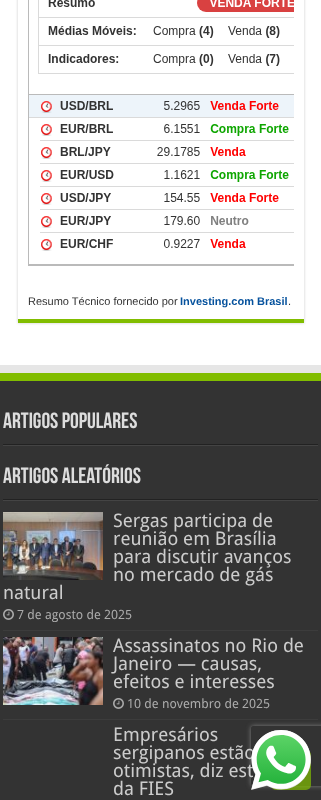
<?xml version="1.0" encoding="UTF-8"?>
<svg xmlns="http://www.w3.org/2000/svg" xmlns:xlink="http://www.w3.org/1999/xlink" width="321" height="800">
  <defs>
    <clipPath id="clip1"><path d="M 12 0 h 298 v 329 h -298 z m 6 -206 h 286 v 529 h -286 z" clip-rule="evenodd" /></clipPath>
    <clipPath id="clip2"><path d="M 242 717 h 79 v 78 h -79 z m 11 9 h 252 c 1 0 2 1 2 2 v 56 c 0 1 -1 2 -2 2 h -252 c -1 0 -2 -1 -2 -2 v -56 c 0 -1 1 -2 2 -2 z" clip-rule="evenodd" /></clipPath>
  </defs>
  <rect width="100%" height="100%" fill="#ffffff" />
  <g clip-path="url(#clip1)">
    <rect x="18" y="-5" width="286" height="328" fill="#cacaca" filter="blur(1.5px)" />
  </g>
  <rect x="18" y="319" width="286" height="4" fill="#81bd00" />
  <image x="28" y="0" width="266" height="266" xlink:href="image1.png" />
  <rect y="365" width="321" height="8" fill="#e6e6e6" />
  <rect y="381" width="321" height="419" fill="#333333" />
  <rect y="373" width="321" height="8" fill="#81bd00" />
  <rect x="3" y="444" width="315" height="1" fill="#222222" />
  <rect x="3" y="445" width="315" height="1" fill="#444444" />
  <rect x="3" y="499" width="315" height="1" fill="#222222" />
  <rect x="3" y="500" width="315" height="1" fill="#444444" />
  <rect x="3" y="630" width="315" height="1" fill="#3c3c3c" />
  <image x="3" y="512" width="100" height="68" xlink:href="image2.png" />
  <image x="3" y="609" width="11" height="11" xlink:href="image3.png" />
  <rect x="3" y="719" width="315" height="1" fill="#3c3c3c" />
  <image x="3" y="637" width="100" height="68" xlink:href="image4.png" />
  <image x="113" y="698" width="11" height="11" xlink:href="image3.png" />
  <g clip-path="url(#clip2)">
    <rect x="251" y="726" width="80" height="60" rx="2" fill="#808080" filter="blur(2.5px)" />
  </g>
  <rect x="271" y="750" width="40" height="40" rx="5" fill="#81bd00" fill-opacity="0.7" />
  <text x="28" y="305" style="font-family: Liberation Sans; font-size: 11px; fill: #333333">Resumo Técnico fornecido por</text>
  <text x="180" y="305" style="font-family: Liberation Sans; font-size: 11px; font-weight: bold; fill: #06529d">Investing.com Brasil</text>
  <text x="288" y="305" style="font-family: Liberation Sans; font-size: 11px; fill: #333333">.</text>
  <text x="3" y="428" style="font-family: Bebas Neue; font-size: 22px; font-weight: bold; fill: #dddddd">Artigos populares</text>
  <text x="3" y="483" style="font-family: Bebas Neue; font-size: 22px; font-weight: bold; fill: #dddddd">Artigos aleatórios</text>
  <text x="113" y="527" style="font-family: Droid Sans; font-size: 18.75px; fill: #cccccc">Sergas participa de</text>
  <text x="113" y="545" style="font-family: Droid Sans; font-size: 18.75px; fill: #cccccc">reunião em Brasília</text>
  <text x="113" y="563" style="font-family: Droid Sans; font-size: 18.75px; fill: #cccccc">para discutir avanços</text>
  <text x="113" y="581" style="font-family: Droid Sans; font-size: 18.75px; fill: #cccccc">no mercado de gás</text>
  <text x="3" y="599" style="font-family: Droid Sans; font-size: 18.75px; fill: #cccccc">natural</text>
  <text x="17" y="619" style="font-family: Droid Sans; font-size: 12.75px; fill: #aaaaaa">7 de agosto de 2025</text>
  <text x="113" y="652" style="font-family: Droid Sans; font-size: 18.75px; fill: #cccccc">Assassinatos no Rio de</text>
  <text x="113" y="670" style="font-family: Droid Sans; font-size: 18.75px; fill: #cccccc">Janeiro — causas,</text>
  <text x="113" y="688" style="font-family: Droid Sans; font-size: 18.75px; fill: #cccccc">efeitos e interesses</text>
  <text x="127" y="708" style="font-family: Droid Sans; font-size: 12.75px; fill: #aaaaaa">10 de novembro de 2025</text>
  <text x="113" y="741" style="font-family: Droid Sans; font-size: 18.75px; fill: #cccccc">Empresários</text>
  <text x="113" y="759" style="font-family: Droid Sans; font-size: 18.75px; fill: #cccccc">sergipanos estão</text>
  <text x="113" y="777" style="font-family: Droid Sans; font-size: 18.75px; fill: #cccccc">otimistas, diz est</text>
  <text x="113" y="795" style="font-family: Droid Sans; font-size: 18.75px; fill: #cccccc">da FIES</text>
  <image x="251" y="730" width="60" height="60" xlink:href="image5.png" />
</svg>
